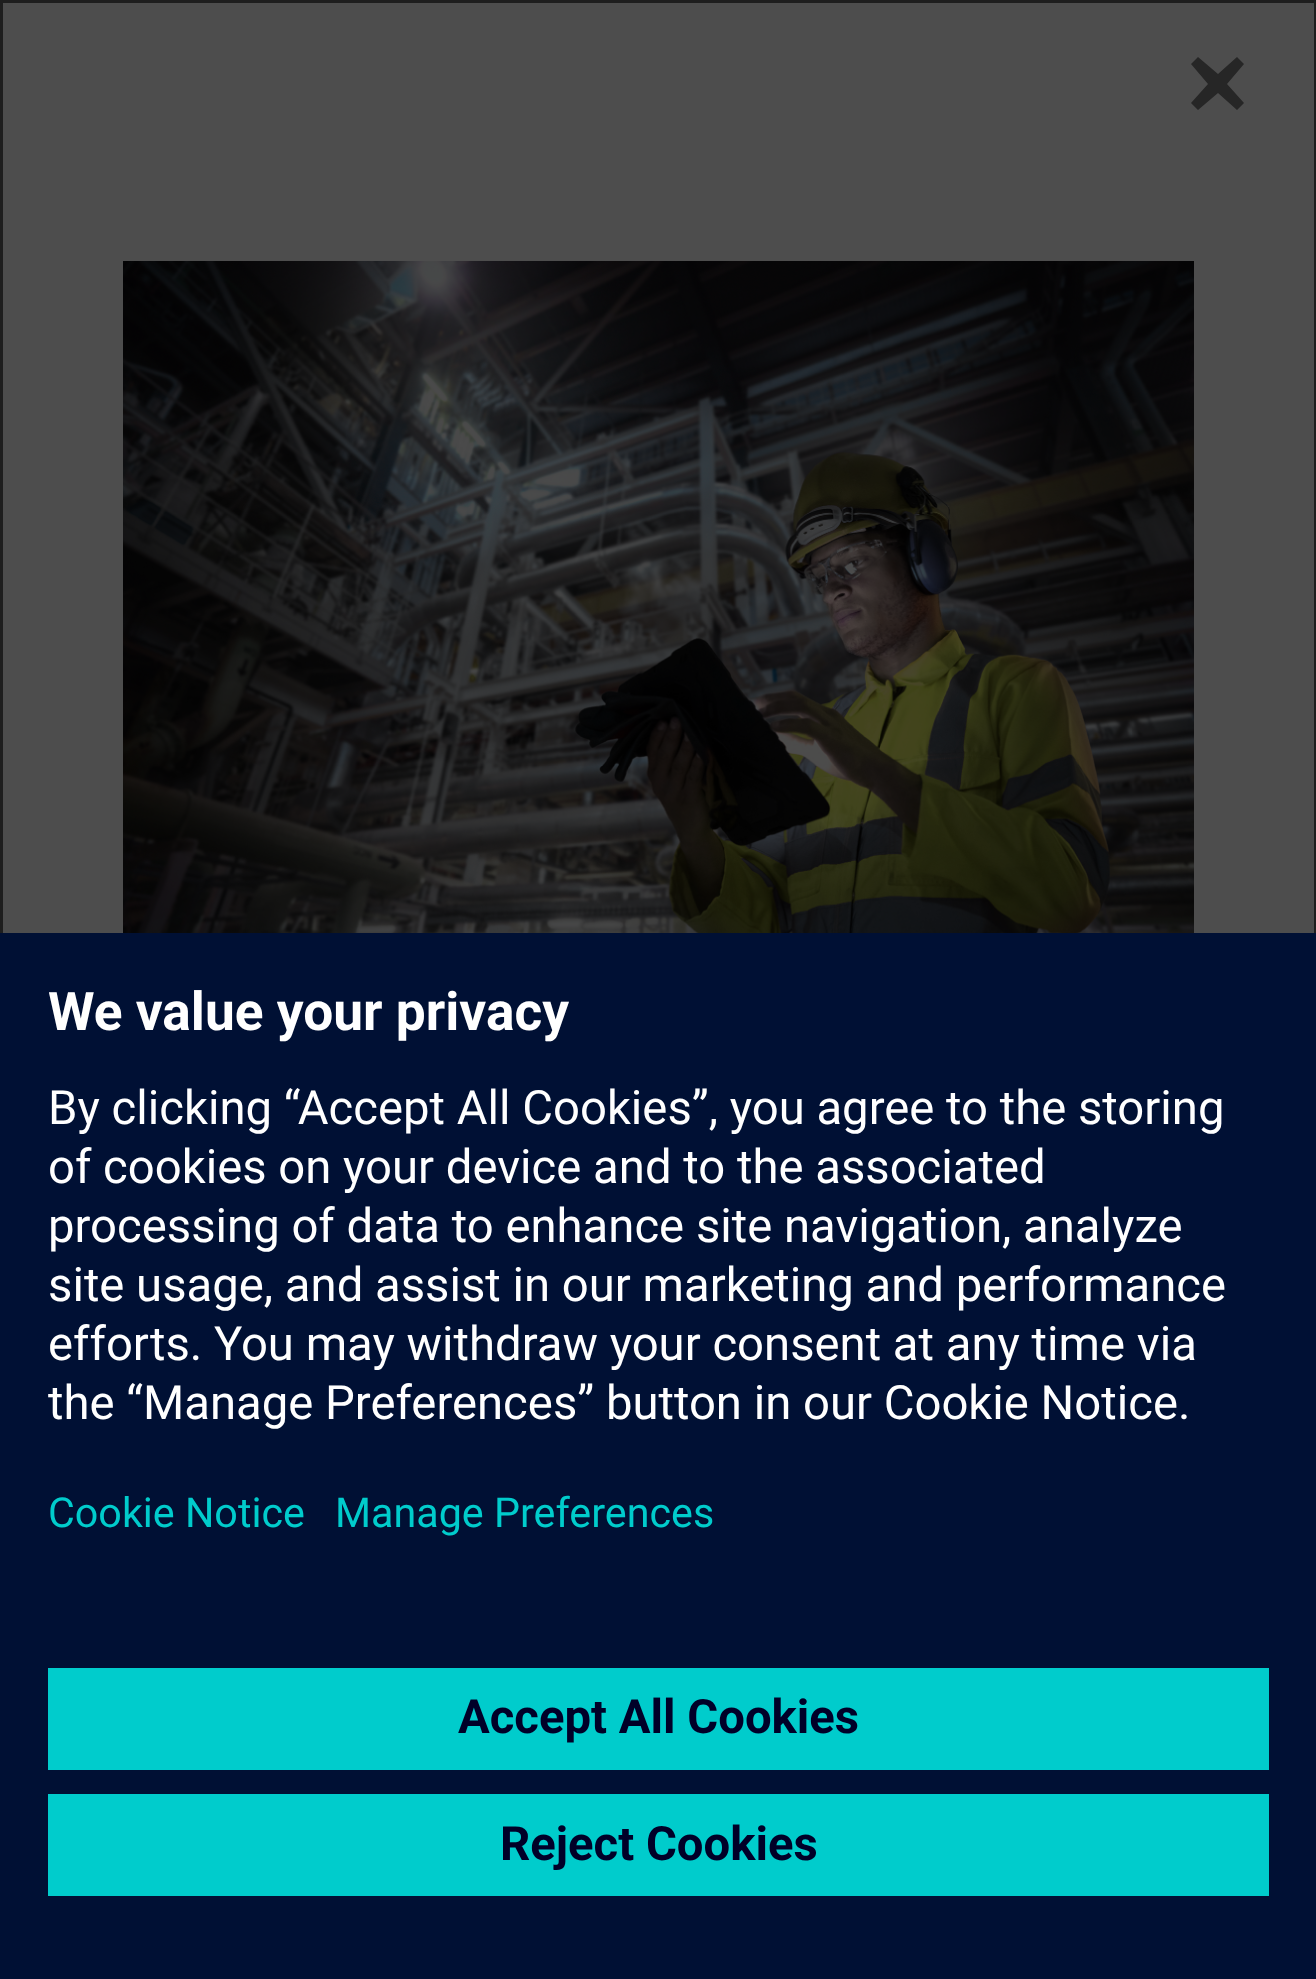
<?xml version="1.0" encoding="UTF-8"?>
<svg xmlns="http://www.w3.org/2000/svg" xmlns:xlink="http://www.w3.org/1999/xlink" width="1316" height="1979">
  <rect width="100%" height="100%" fill="#262626" />
  <rect x="3" y="3" width="1311" height="930" fill="#4d4d4d" />
  <rect x="1.5" y="1.5" width="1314" height="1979" fill="none" stroke="#000000" stroke-opacity="0.2" stroke-width="3" />
  <path d="M 1237 110 l 7 -7 l -17 -19 l 17 -20 l -7 -7 l -19 17 l -20 -17 l -7 7 l 17 20 l -17 19 l 7 7 l 20 -17 z" fill="#262626" />
  <image x="123" y="261" width="1071" height="672" xlink:href="image1.png" />
  <rect y="933" width="1316" height="1046" fill="#001034" />
  <rect x="48" y="1668" width="1221" height="102" fill="#00cccc" />
  <rect x="48" y="1794" width="1221" height="102" fill="#00cccc" />
  <text x="48" y="1030" style="font-family: Roboto; font-size: 53.25px; font-weight: bold; fill: #ffffff">We value your privacy</text>
  <text x="48" y="1124" style="font-family: Roboto; font-size: 47.25px; fill: #ffffff">By clicking “Accept All Cookies”, you agree to the storing</text>
  <text x="48" y="1183" style="font-family: Roboto; font-size: 47.25px; fill: #ffffff">of cookies on your device and to the associated</text>
  <text x="48" y="1242" style="font-family: Roboto; font-size: 47.25px; fill: #ffffff">processing of data to enhance site navigation, analyze</text>
  <text x="48" y="1301" style="font-family: Roboto; font-size: 47.25px; fill: #ffffff">site usage, and assist in our marketing and performance</text>
  <text x="48" y="1360" style="font-family: Roboto; font-size: 47.25px; fill: #ffffff">efforts. You may withdraw your consent at any time via</text>
  <text x="48" y="1419" style="font-family: Roboto; font-size: 47.25px; fill: #ffffff">the “Manage Preferences” button in our Cookie Notice.</text>
  <text x="48" y="1527" style="font-family: Roboto; font-size: 41.25px; fill: #00cccc">Cookie Notice</text>
  <text x="335" y="1527" style="font-family: Roboto; font-size: 41.25px; fill: #00cccc">Manage Preferences</text>
  <text x="458" y="1733" style="font-family: Roboto; font-size: 47.25px; font-weight: bold; fill: #000028">Accept All Cookies</text>
  <text x="500" y="1860" style="font-family: Roboto; font-size: 47.25px; font-weight: bold; fill: #000028">Reject Cookies</text>
</svg>
